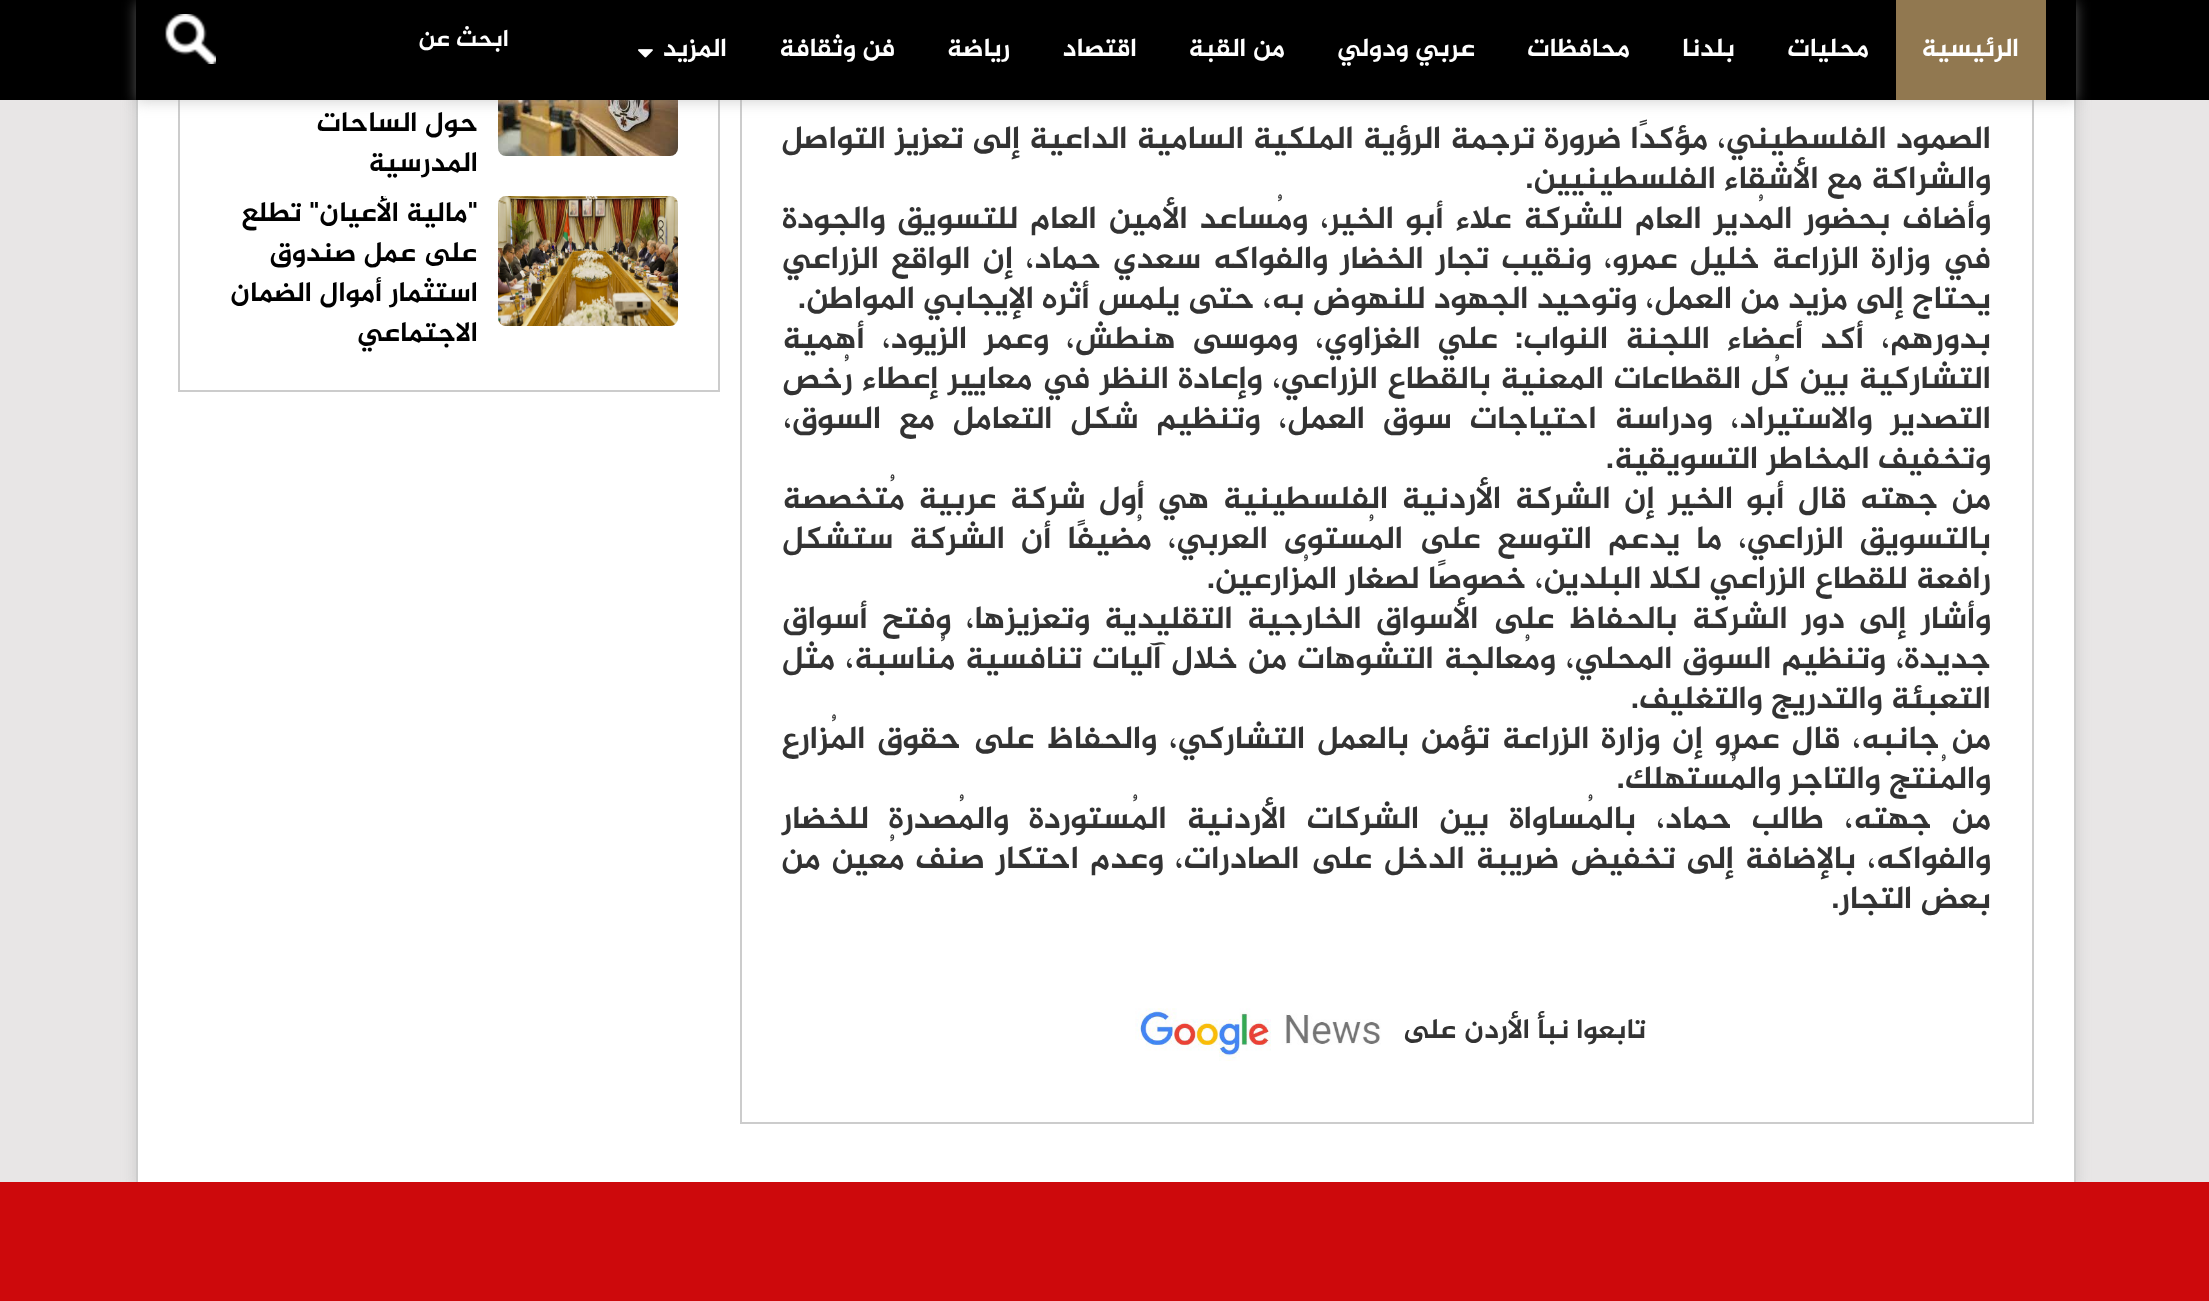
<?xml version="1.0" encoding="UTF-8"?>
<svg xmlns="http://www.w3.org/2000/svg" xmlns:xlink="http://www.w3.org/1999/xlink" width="2209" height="1301">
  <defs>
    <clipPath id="clip1"><path d="M 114 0 h 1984 v 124 h -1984 z m 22 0 h 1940 v 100 h -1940 z" clip-rule="evenodd" /></clipPath>
    <clipPath id="clip2"><rect x="220" y="196" width="458" height="184" /></clipPath>
  </defs>
  <rect width="100%" height="100%" fill="#e8e6e6" />
  <rect x="136" y="-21" width="1940" height="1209" fill="#ababab" fill-opacity="0.5" filter="blur(7px)" />
  <rect x="138" y="100" width="1936" height="1082" fill="#ffffff" />
  <rect x="137" y="-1" width="1938" height="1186" fill="none" stroke="#cccccc" stroke-width="2" />
  <rect x="741" y="-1" width="1292" height="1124" fill="none" stroke="#cccccc" stroke-width="2" />
  <rect x="179" y="-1" width="540" height="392" fill="none" stroke="#cccccc" stroke-width="2" />
  <rect width="2209" height="100" fill="#000000" />
  <image x="498" y="100" width="180" height="56" xlink:href="image4.png" />
  <g clip-path="url(#clip1)">
    <rect x="136" y="2" width="1940" height="100" fill="#ababab" fill-opacity="0.5" filter="blur(7px)" />
  </g>
  <rect x="1896" width="150" height="100" fill="#917850" />
  <image x="638" y="49" width="15" height="9" xlink:href="image1.png" />
  <image x="165" y="14" width="51" height="50" xlink:href="image2.png" />
  <image x="1135" y="1008" width="246" height="53" xlink:href="image3.png" />
  <image x="498" y="196" width="180" height="130" xlink:href="image5.png" />
  <rect y="1182" width="2209" height="119" fill="#cd090c" />
  <text x="2019" y="56" style="font-family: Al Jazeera; font-size: 26px; font-weight: bold; direction: rtl; fill: #ffffff">الرئيسية</text>
  <text x="1869" y="56" style="font-family: Al Jazeera; font-size: 26px; font-weight: bold; direction: rtl; fill: #ffffff">محليات</text>
  <text x="1735" y="56" style="font-family: Al Jazeera; font-size: 26px; font-weight: bold; direction: rtl; fill: #ffffff">بلدنا</text>
  <text x="1630" y="56" style="font-family: Al Jazeera; font-size: 26px; font-weight: bold; direction: rtl; fill: #ffffff">محافظات</text>
  <text x="1475" y="56" style="font-family: Al Jazeera; font-size: 26px; font-weight: bold; direction: rtl; fill: #ffffff">عربي ودولي</text>
  <text x="1285" y="56" style="font-family: Al Jazeera; font-size: 26px; font-weight: bold; direction: rtl; fill: #ffffff">من القبة</text>
  <text x="1137" y="56" style="font-family: Al Jazeera; font-size: 26px; font-weight: bold; direction: rtl; fill: #ffffff">اقتصاد</text>
  <text x="1010" y="56" style="font-family: Al Jazeera; font-size: 26px; font-weight: bold; direction: rtl; fill: #ffffff">رياضة</text>
  <text x="895" y="56" style="font-family: Al Jazeera; font-size: 26px; font-weight: bold; direction: rtl; fill: #ffffff">فن وثقافة</text>
  <text x="727" y="56" style="font-family: Al Jazeera; font-size: 26px; font-weight: bold; direction: rtl; fill: #ffffff">المزيد</text>
  <text x="509" y="46" style="font-family: Al Jazeera; font-size: 24px; font-weight: bold; direction: rtl; fill: #ffffff">ابحث عن</text>
  <text x="1991" y="148" word-spacing="0.75" style="font-family: Al Jazeera; font-size: 32px; font-weight: bold; direction: rtl; fill: #333333">الصمود الفلسطيني، مؤكدًا ضرورة ترجمة الرؤية الملكية السامية الداعية إلى تعزيز التواصل</text>
  <text x="1991" y="188" style="font-family: Al Jazeera; font-size: 32px; font-weight: bold; direction: rtl; fill: #333333">والشراكة مع الأشقاء الفلسطينيين.</text>
  <text x="1991" y="228" word-spacing="3.6" style="font-family: Al Jazeera; font-size: 32px; font-weight: bold; direction: rtl; fill: #333333">وأضاف بحضور المُدير العام للشركة علاء أبو الخير، ومُساعد الأمين العام للتسويق والجودة</text>
  <text x="1991" y="268" word-spacing="3.75" style="font-family: Al Jazeera; font-size: 32px; font-weight: bold; direction: rtl; fill: #333333">في وزارة الزراعة خليل عمرو، ونقيب تجار الخضار والفواكه سعدي حماد، إن الواقع الزراعي</text>
  <text x="1991" y="308" style="font-family: Al Jazeera; font-size: 32px; font-weight: bold; direction: rtl; fill: #333333">يحتاج إلى مزيد من العمل، وتوحيد الجهود للنهوض به، حتى يلمس أثره الإيجابي المواطن.</text>
  <text x="1991" y="348" word-spacing="8.6" style="font-family: Al Jazeera; font-size: 32px; font-weight: bold; direction: rtl; fill: #333333">بدورهم، أكد أعضاء اللجنة النواب: علي الغزاوي، وموسى هنطش، وعمر الزيود، أهمية</text>
  <text x="1991" y="388" word-spacing="1.1" style="font-family: Al Jazeera; font-size: 32px; font-weight: bold; direction: rtl; fill: #333333">التشاركية بين كُل القطاعات المعنية بالقطاع الزراعي، وإعادة النظر في معايير إعطاء رُخص</text>
  <text x="1991" y="428" word-spacing="9.5" style="font-family: Al Jazeera; font-size: 32px; font-weight: bold; direction: rtl; fill: #333333">التصدير والاستيراد، ودراسة احتياجات سوق العمل، وتنظيم شكل التعامل مع السوق،</text>
  <text x="1991" y="468" style="font-family: Al Jazeera; font-size: 32px; font-weight: bold; direction: rtl; fill: #333333">وتخفيف المخاطر التسويقية.</text>
  <text x="1991" y="508" word-spacing="5.1" style="font-family: Al Jazeera; font-size: 32px; font-weight: bold; direction: rtl; fill: #333333">من جهته قال أبو الخير إن الشركة الأردنية الفلسطينية هي أول شركة عربية مُتخصصة</text>
  <text x="1991" y="548" word-spacing="7.5" style="font-family: Al Jazeera; font-size: 32px; font-weight: bold; direction: rtl; fill: #333333">بالتسويق الزراعي، ما يدعم التوسع على المُستوى العربي، مُضيفًا أن الشركة ستشكل</text>
  <text x="1991" y="588" style="font-family: Al Jazeera; font-size: 32px; font-weight: bold; direction: rtl; fill: #333333">رافعة للقطاع الزراعي لكلا البلدين، خصوصًا لصغار المُزارعين.</text>
  <text x="1991" y="628" word-spacing="5.9" style="font-family: Al Jazeera; font-size: 32px; font-weight: bold; direction: rtl; fill: #333333">وأشار إلى دور الشركة بالحفاظ على الأسواق الخارجية التقليدية وتعزيزها، وفتح أسواق</text>
  <text x="1991" y="668" word-spacing="1.6" style="font-family: Al Jazeera; font-size: 32px; font-weight: bold; direction: rtl; fill: #333333">جديدة، وتنظيم السوق المحلي، ومُعالجة التشوهات من خلال آليات تنافسية مُناسبة، مثل</text>
  <text x="1991" y="708" style="font-family: Al Jazeera; font-size: 32px; font-weight: bold; direction: rtl; fill: #333333">التعبئة والتدريج والتغليف.</text>
  <text x="1991" y="748" word-spacing="3.6" style="font-family: Al Jazeera; font-size: 32px; font-weight: bold; direction: rtl; fill: #333333">من جانبه، قال عمرو إن وزارة الزراعة تؤمن بالعمل التشاركي، والحفاظ على حقوق المُزارع</text>
  <text x="1991" y="788" style="font-family: Al Jazeera; font-size: 32px; font-weight: bold; direction: rtl; fill: #333333">والمُنتج والتاجر والمُستهلك.</text>
  <text x="1991" y="828" word-spacing="11.75" style="font-family: Al Jazeera; font-size: 32px; font-weight: bold; direction: rtl; fill: #333333">من جهته، طالب حماد، بالمُساواة بين الشركات الأردنية المُستوردة والمُصدرة للخضار</text>
  <text x="1991" y="868" word-spacing="2.6" style="font-family: Al Jazeera; font-size: 32px; font-weight: bold; direction: rtl; fill: #333333">والفواكه، بالإضافة إلى تخفيض ضريبة الدخل على الصادرات، وعدم احتكار صنف مُعين من</text>
  <text x="1991" y="908" style="font-family: Al Jazeera; font-size: 32px; font-weight: bold; direction: rtl; fill: #333333">بعض التجار.</text>
  <text x="1646" y="1038" style="font-family: Al Jazeera; font-size: 28px; font-weight: bold; direction: rtl; fill: #333333">تابعوا نبأ الأردن</text>
  <text x="1457" y="1038" style="font-family: Al Jazeera; font-size: 28px; font-weight: bold; direction: rtl; fill: #333333">على</text>
  <text x="478" y="131" style="font-family: Al Jazeera; font-size: 28px; font-weight: bold; direction: rtl; fill: #000000">حول الساحات</text>
  <text x="478" y="171" style="font-family: Al Jazeera; font-size: 28px; font-weight: bold; direction: rtl; fill: #000000">المدرسية</text>
  <g clip-path="url(#clip2)">
    <text x="478" y="221" style="font-family: Al Jazeera; font-size: 28px; font-weight: bold; direction: rtl; fill: #000000">"مالية الأعيان" تطلع</text>
  </g>
  <text x="478" y="261" style="font-family: Al Jazeera; font-size: 28px; font-weight: bold; direction: rtl; fill: #000000">على عمل صندوق</text>
  <text x="478" y="301" style="font-family: Al Jazeera; font-size: 28px; font-weight: bold; direction: rtl; fill: #000000">استثمار أموال الضمان</text>
  <text x="478" y="341" style="font-family: Al Jazeera; font-size: 28px; font-weight: bold; direction: rtl; fill: #000000">الاجتماعي</text>
</svg>
